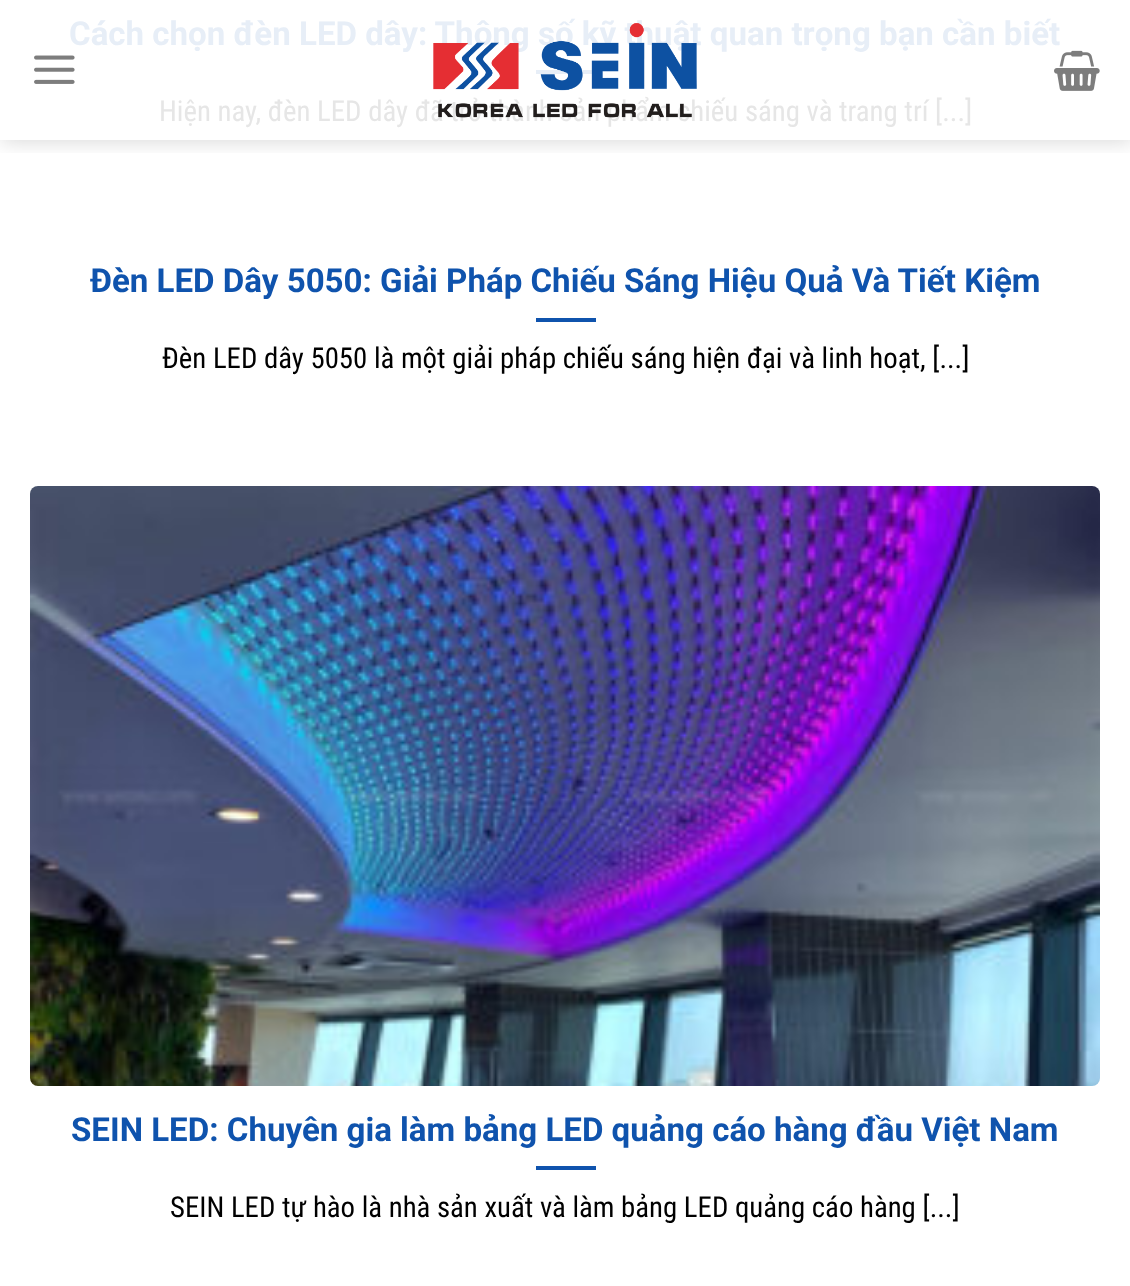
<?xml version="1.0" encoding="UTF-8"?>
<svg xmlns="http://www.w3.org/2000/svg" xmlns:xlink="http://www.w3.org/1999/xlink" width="1130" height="1286">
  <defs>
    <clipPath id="clip1"><rect x="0" y="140" width="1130" height="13" /></clipPath>
  </defs>
  <rect width="100%" height="100%" fill="#ffffff" />
  <rect x="536" y="70" width="60" height="4" fill="#e7eef7" />
  <g clip-path="url(#clip1)">
    <rect x="2" y="2" width="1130" height="140" fill="#000000" fill-opacity="0.15" filter="blur(10px)" />
  </g>
  <image x="34" y="55" width="41" height="29" xlink:href="image1.png" />
  <rect x="536" y="318" width="60" height="4" fill="#0f53ad" />
  <image x="30" y="486" width="1070" height="600" xlink:href="image4.png" />
  <rect x="536" y="1166" width="60" height="4" fill="#0f53ad" />
  <text x="69" y="45" style="font-family: Roboto; font-size: 33.1px; font-weight: bold; fill: #e7eef7">Cách chọn đèn LED dây: Thông số kỹ thuật quan trọng bạn cần biết</text>
  <image x="1054" y="50" width="46" height="41" xlink:href="image3.png" />
  <text x="159" y="121" style="font-family: Roboto Condensed; font-size: 28.8px; fill: #e6e6e6">Hiện nay, đèn LED dây đã trở thành sản phẩm chiếu sáng và trang trí [...]</text>
  <image x="433" y="23" width="264" height="95" xlink:href="image2.png" />
  <text x="90" y="292" style="font-family: Roboto; font-size: 33.1px; font-weight: bold; fill: #0f53ad">Đèn LED Dây 5050: Giải Pháp Chiếu Sáng Hiệu Quả Và Tiết Kiệm</text>
  <text x="162" y="368" style="font-family: Roboto Condensed; font-size: 28.8px; fill: #000000">Đèn LED dây 5050 là một giải pháp chiếu sáng hiện đại và linh hoạt, [...]</text>
  <text x="71" y="1141" style="font-family: Roboto; font-size: 33.1px; font-weight: bold; fill: #0f53ad">SEIN LED: Chuyên gia làm bảng LED quảng cáo hàng đầu Việt Nam</text>
  <text x="170" y="1217" style="font-family: Roboto Condensed; font-size: 28.8px; fill: #000000">SEIN LED tự hào là nhà sản xuất và làm bảng LED quảng cáo hàng [...]</text>
</svg>
